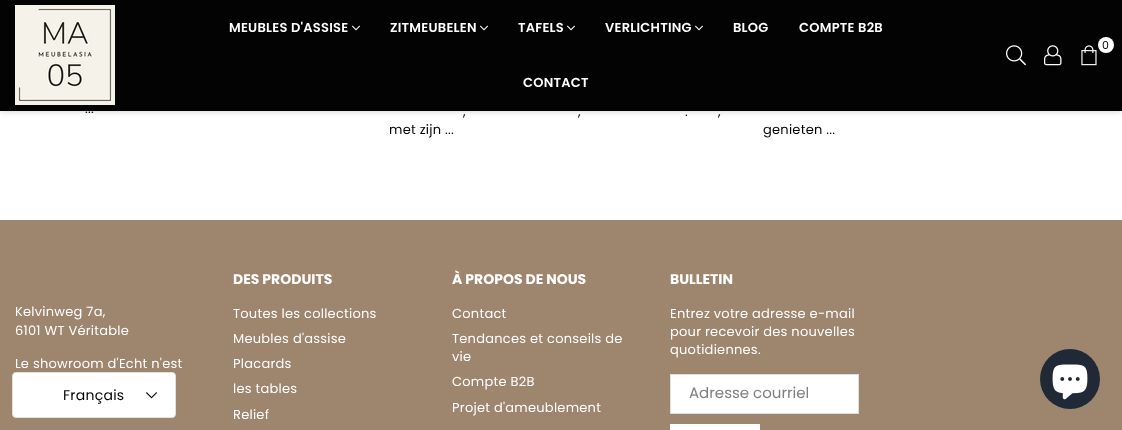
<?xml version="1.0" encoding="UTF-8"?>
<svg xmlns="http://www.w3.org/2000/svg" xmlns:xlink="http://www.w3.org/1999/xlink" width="1122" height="430">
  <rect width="100%" height="100%" fill="#ffffff" />
  <rect width="1122" height="111" fill="#000000" fill-opacity="0.2" filter="blur(3.5px)" />
  <rect width="1122" height="110" fill="#030303" />
  <rect y="110" width="1122" height="1" fill="#000000" />
  <image x="15" y="5" width="100" height="100" xlink:href="image1.png" />
  <image x="352" y="25" width="8" height="6" xlink:href="image2.png" />
  <image x="480" y="25" width="8" height="6" xlink:href="image2.png" />
  <image x="567" y="25" width="8" height="6" xlink:href="image2.png" />
  <image x="695" y="25" width="8" height="6" xlink:href="image2.png" />
  <image x="1006" y="45" width="20" height="21" xlink:href="image3.png" />
  <image x="1044" y="45" width="18" height="21" xlink:href="image4.png" />
  <image x="1081" y="45" width="16" height="21" xlink:href="image5.png" />
  <circle cx="1106" cy="45" r="8" fill="#ffffff" />
  <rect y="220" width="1122" height="210" fill="#9e856e" />
  <rect y="219" width="1122" height="1" fill="#fcfcfc" />
  <rect x="670.5" y="374.5" width="188" height="39" fill="#ffffff" stroke="#dedfde" />
  <rect x="670" y="424" width="90" height="6" fill="#ffffff" />
  <circle cx="1070" cy="379" r="30" fill="#202a36" />
  <image x="1052" y="364" width="36" height="36" xlink:href="image6.png" />
  <rect x="12.5" y="372.5" width="163" height="45" rx="3.5" fill="#ffffff" stroke="#e0e0e0" />
  <image x="146" y="392" width="11" height="7" xlink:href="image7.png" />
  <text x="229" y="32" style="font-family: Poppins; font-size: 13px; font-weight: 600; letter-spacing: 0.25px; fill: #ffffff">MEUBLES D'ASSISE</text>
  <text x="390" y="32" style="font-family: Poppins; font-size: 13px; font-weight: 600; letter-spacing: 0.25px; fill: #ffffff">ZITMEUBELEN</text>
  <text x="518" y="32" style="font-family: Poppins; font-size: 13px; font-weight: 600; letter-spacing: 0.25px; fill: #ffffff">TAFELS</text>
  <text x="605" y="32" style="font-family: Poppins; font-size: 13px; font-weight: 600; letter-spacing: 0.25px; fill: #ffffff">VERLICHTING</text>
  <text x="733" y="32" style="font-family: Poppins; font-size: 13px; font-weight: 600; letter-spacing: 0.25px; fill: #ffffff">BLOG</text>
  <text x="799" y="32" style="font-family: Poppins; font-size: 13px; font-weight: 600; letter-spacing: 0.25px; fill: #ffffff">COMPTE B2B</text>
  <text x="523" y="87" style="font-family: Poppins; font-size: 13px; font-weight: 600; letter-spacing: 0.25px; fill: #ffffff">CONTACT</text>
  <text x="1102" y="49" style="font-family: Poppins; font-size: 11px; letter-spacing: 0.25px; fill: #030303">0</text>
  <text x="85" y="113" style="font-family: Poppins; font-size: 13px; letter-spacing: 0.25px; fill: #030303">...</text>
  <text x="463" y="116" style="font-family: Poppins; font-size: 13px; letter-spacing: 0.25px; fill: #030303">,</text>
  <text x="578" y="116" style="font-family: Poppins; font-size: 13px; letter-spacing: 0.25px; fill: #030303">,</text>
  <text x="685" y="116" style="font-family: Poppins; font-size: 13px; letter-spacing: 0.25px; fill: #030303">.</text>
  <text x="718" y="116" style="font-family: Poppins; font-size: 13px; letter-spacing: 0.25px; fill: #030303">,</text>
  <text x="389" y="134" style="font-family: Poppins; font-size: 13px; letter-spacing: 0.25px; fill: #030303">met zijn ...</text>
  <text x="763" y="134" style="font-family: Poppins; font-size: 13px; letter-spacing: 0.25px; fill: #030303">genieten ...</text>
  <text x="15" y="316" style="font-family: Poppins; font-size: 13px; letter-spacing: 0.25px; fill: #ffffff">Kelvinweg 7a,</text>
  <text x="15" y="335" style="font-family: Poppins; font-size: 13px; letter-spacing: 0.25px; fill: #ffffff">6101 WT Véritable</text>
  <text x="15" y="368" style="font-family: Poppins; font-size: 13px; letter-spacing: 0.25px; fill: #ffffff">Le showroom d'Echt n'est</text>
  <text x="233" y="284" style="font-family: Poppins; font-size: 14px; font-weight: bold; fill: #ffffff">DES PRODUITS</text>
  <text x="233" y="318" style="font-family: Poppins; font-size: 13px; letter-spacing: 0.25px; fill: #ffffff">Toutes les collections</text>
  <text x="233" y="343" style="font-family: Poppins; font-size: 13px; letter-spacing: 0.25px; fill: #ffffff">Meubles d'assise</text>
  <text x="233" y="368" style="font-family: Poppins; font-size: 13px; letter-spacing: 0.25px; fill: #ffffff">Placards</text>
  <text x="233" y="393" style="font-family: Poppins; font-size: 13px; letter-spacing: 0.25px; fill: #ffffff">les tables</text>
  <text x="233" y="419" style="font-family: Poppins; font-size: 13px; letter-spacing: 0.25px; fill: #ffffff">Relief</text>
  <text x="452" y="284" style="font-family: Poppins; font-size: 14px; font-weight: bold; fill: #ffffff">À PROPOS DE NOUS</text>
  <text x="452" y="318" style="font-family: Poppins; font-size: 13px; letter-spacing: 0.25px; fill: #ffffff">Contact</text>
  <text x="452" y="343" style="font-family: Poppins; font-size: 13px; letter-spacing: 0.25px; fill: #ffffff">Tendances et conseils de</text>
  <text x="452" y="361" style="font-family: Poppins; font-size: 13px; letter-spacing: 0.25px; fill: #ffffff">vie</text>
  <text x="452" y="386" style="font-family: Poppins; font-size: 13px; letter-spacing: 0.25px; fill: #ffffff">Compte B2B</text>
  <text x="452" y="412" style="font-family: Poppins; font-size: 13px; letter-spacing: 0.25px; fill: #ffffff">Projet d'ameublement</text>
  <text x="670" y="284" style="font-family: Poppins; font-size: 14px; font-weight: bold; fill: #ffffff">BULLETIN</text>
  <text x="670" y="318" style="font-family: Poppins; font-size: 13px; letter-spacing: 0.25px; fill: #ffffff">Entrez votre adresse e-mail</text>
  <text x="670" y="336" style="font-family: Poppins; font-size: 13px; letter-spacing: 0.25px; fill: #ffffff">pour recevoir des nouvelles</text>
  <text x="670" y="354" style="font-family: Poppins; font-size: 13px; letter-spacing: 0.25px; fill: #ffffff">quotidiennes.</text>
  <text x="689" y="398" style="font-family: Poppins; font-size: 15px; fill: #808080">Adresse courriel</text>
  <text x="63" y="400" style="font-family: Poppins; font-size: 14px; letter-spacing: 0.25px; fill: #030303">Français</text>
</svg>
